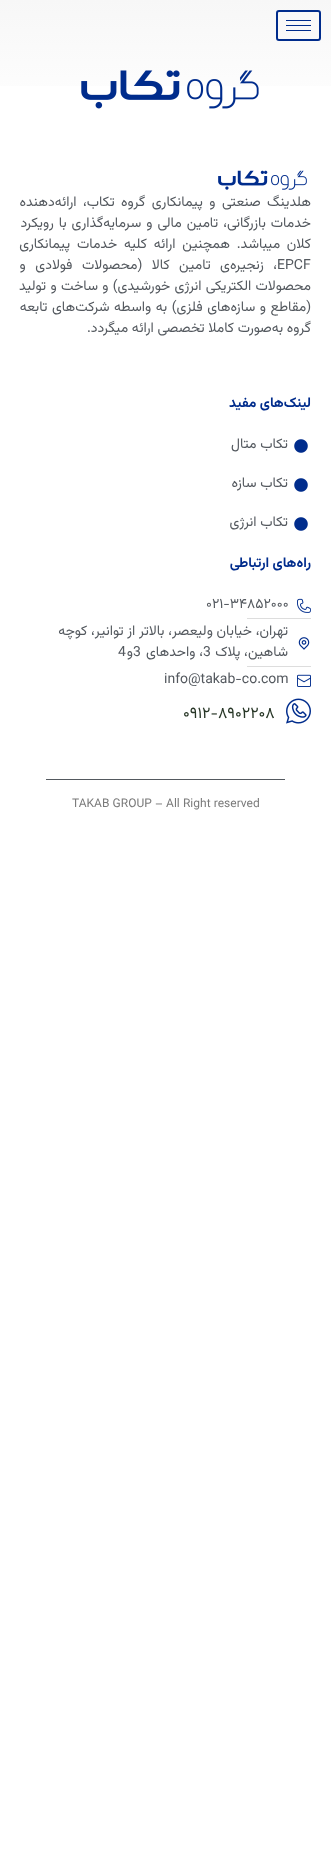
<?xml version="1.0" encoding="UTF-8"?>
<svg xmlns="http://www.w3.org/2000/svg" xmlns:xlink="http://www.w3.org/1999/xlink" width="331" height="1852">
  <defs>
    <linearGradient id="g1" gradientUnits="userSpaceOnUse" x1="166" y1="0" x2="166" y2="125"><stop offset="0" stop-color="#f7f7f7" /><stop offset="1" stop-color="#ffffff" /></linearGradient>
  </defs>
  <rect width="100%" height="100%" fill="#ffffff" />
  <rect width="331" height="86" fill="url(#g1)" />
  <rect x="277" y="11" width="43" height="29" rx="2" fill="none" stroke="#002c8c" stroke-width="2" />
  <rect x="286" y="20" width="25" height="1" fill="#002c8c" />
  <rect x="286" y="25" width="25" height="1" fill="#002c8c" />
  <rect x="286" y="30" width="25" height="1" fill="#002c8c" />
  <image x="81" y="70" width="178" height="39" xlink:href="image1.png" />
  <image x="218" y="170" width="89" height="20" xlink:href="image2.png" />
  <image x="294" y="439" width="14" height="14" xlink:href="image3.png" />
  <image x="294" y="478" width="14" height="14" xlink:href="image3.png" />
  <image x="294" y="517" width="14" height="14" xlink:href="image3.png" />
  <image x="297" y="598" width="14" height="15" xlink:href="image4.png" />
  <rect x="247" y="618" width="64" height="1" fill="#dddddd" />
  <image x="298" y="637" width="12" height="13" xlink:href="image5.png" />
  <rect x="247" y="666" width="64" height="1" fill="#dddddd" />
  <image x="297" y="674" width="14" height="13" xlink:href="image6.png" />
  <image x="286" y="698" width="25" height="26" xlink:href="image7.png" />
  <rect x="46" y="779" width="239" height="1" fill="#54595f" />
  <text x="311" y="206" word-spacing="2.75" style="font-family: Vazirmatn; font-size: 14px; direction: rtl; fill: #54595f">هلدینگ صنعتی و پیمانکاری گروه تکاب، ارائه‌دهنده</text>
  <text x="311" y="227" word-spacing="1.25" style="font-family: Vazirmatn; font-size: 14px; direction: rtl; fill: #54595f">خدمات بازرگانی، تامین مالی و سرمایه‌گذاری با رویکرد</text>
  <text x="311" y="248" word-spacing="3" style="font-family: Vazirmatn; font-size: 14px; direction: rtl; fill: #54595f">کلان میباشد. همچنین ارائه کلیه خدمات پیمانکاری</text>
  <text x="277" y="269" style="font-family: Vazirmatn; font-size: 14px; fill: #54595f">EPCF</text>
  <text x="277" y="269" word-spacing="5.75" style="font-family: Vazirmatn; font-size: 14px; direction: rtl; fill: #54595f">، زنجیره‌ی تامین کالا (محصولات فولادی و</text>
  <text x="311" y="290" word-spacing="0.5" style="font-family: Vazirmatn; font-size: 14px; direction: rtl; fill: #54595f">محصولات الکتریکی انرژی خورشیدی) و ساخت و تولید</text>
  <text x="311" y="311" word-spacing="0.75" style="font-family: Vazirmatn; font-size: 14px; direction: rtl; fill: #54595f">(مقاطع و سازه‌های فلزی) به واسطه شرکت‌های تابعه</text>
  <text x="311" y="332" style="font-family: Vazirmatn; font-size: 14px; direction: rtl; fill: #54595f">گروه به‌صورت کاملا تخصصی ارائه میگردد.</text>
  <text x="311" y="407" style="font-family: Vazirmatn; font-size: 14px; font-weight: bold; direction: rtl; fill: #002c8c">لینک‌های مفید</text>
  <text x="288" y="448" style="font-family: Vazirmatn; font-size: 14px; direction: rtl; fill: #54595f">تکاب متال</text>
  <text x="288" y="487" style="font-family: Vazirmatn; font-size: 14px; direction: rtl; fill: #54595f">تکاب سازه</text>
  <text x="288" y="526" style="font-family: Vazirmatn; font-size: 14px; direction: rtl; fill: #54595f">تکاب انرژی</text>
  <text x="311" y="567" style="font-family: Vazirmatn; font-size: 14px; font-weight: bold; direction: rtl; fill: #002c8c">راه‌های ارتباطی</text>
  <text x="206" y="608" style="font-family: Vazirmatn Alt; font-size: 14px; fill: #54595f">021-34852000</text>
  <text x="288" y="635" style="font-family: Vazirmatn; font-size: 14px; direction: rtl; fill: #54595f">تهران، خیابان ولیعصر، بالاتر از توانیر، کوچه</text>
  <text x="288" y="656" style="font-family: Vazirmatn; font-size: 14px; direction: rtl; fill: #54595f">شاهین، پلاک</text>
  <text x="203" y="656" style="font-family: Vazirmatn; font-size: 14px; fill: #54595f">3</text>
  <text x="203" y="656" style="font-family: Vazirmatn; font-size: 14px; direction: rtl; fill: #54595f">، واحدهای</text>
  <text x="133" y="656" style="font-family: Vazirmatn; font-size: 14px; fill: #54595f">3</text>
  <text x="133" y="656" style="font-family: Vazirmatn; font-size: 14px; direction: rtl; fill: #54595f">و</text>
  <text x="118" y="656" style="font-family: Vazirmatn; font-size: 14px; fill: #54595f">4</text>
  <text x="164" y="683" style="font-family: Vazirmatn; font-size: 14px; fill: #54595f">info@takab-co.com</text>
  <text x="183" y="718" style="font-family: Vazirmatn Alt; font-size: 16px; fill: #273626">0912-8902208</text>
  <text x="72" y="807" style="font-family: Vazirmatn; font-size: 12px; fill: #7a7a7a">TAKAB GROUP – All Right reserved</text>
</svg>
